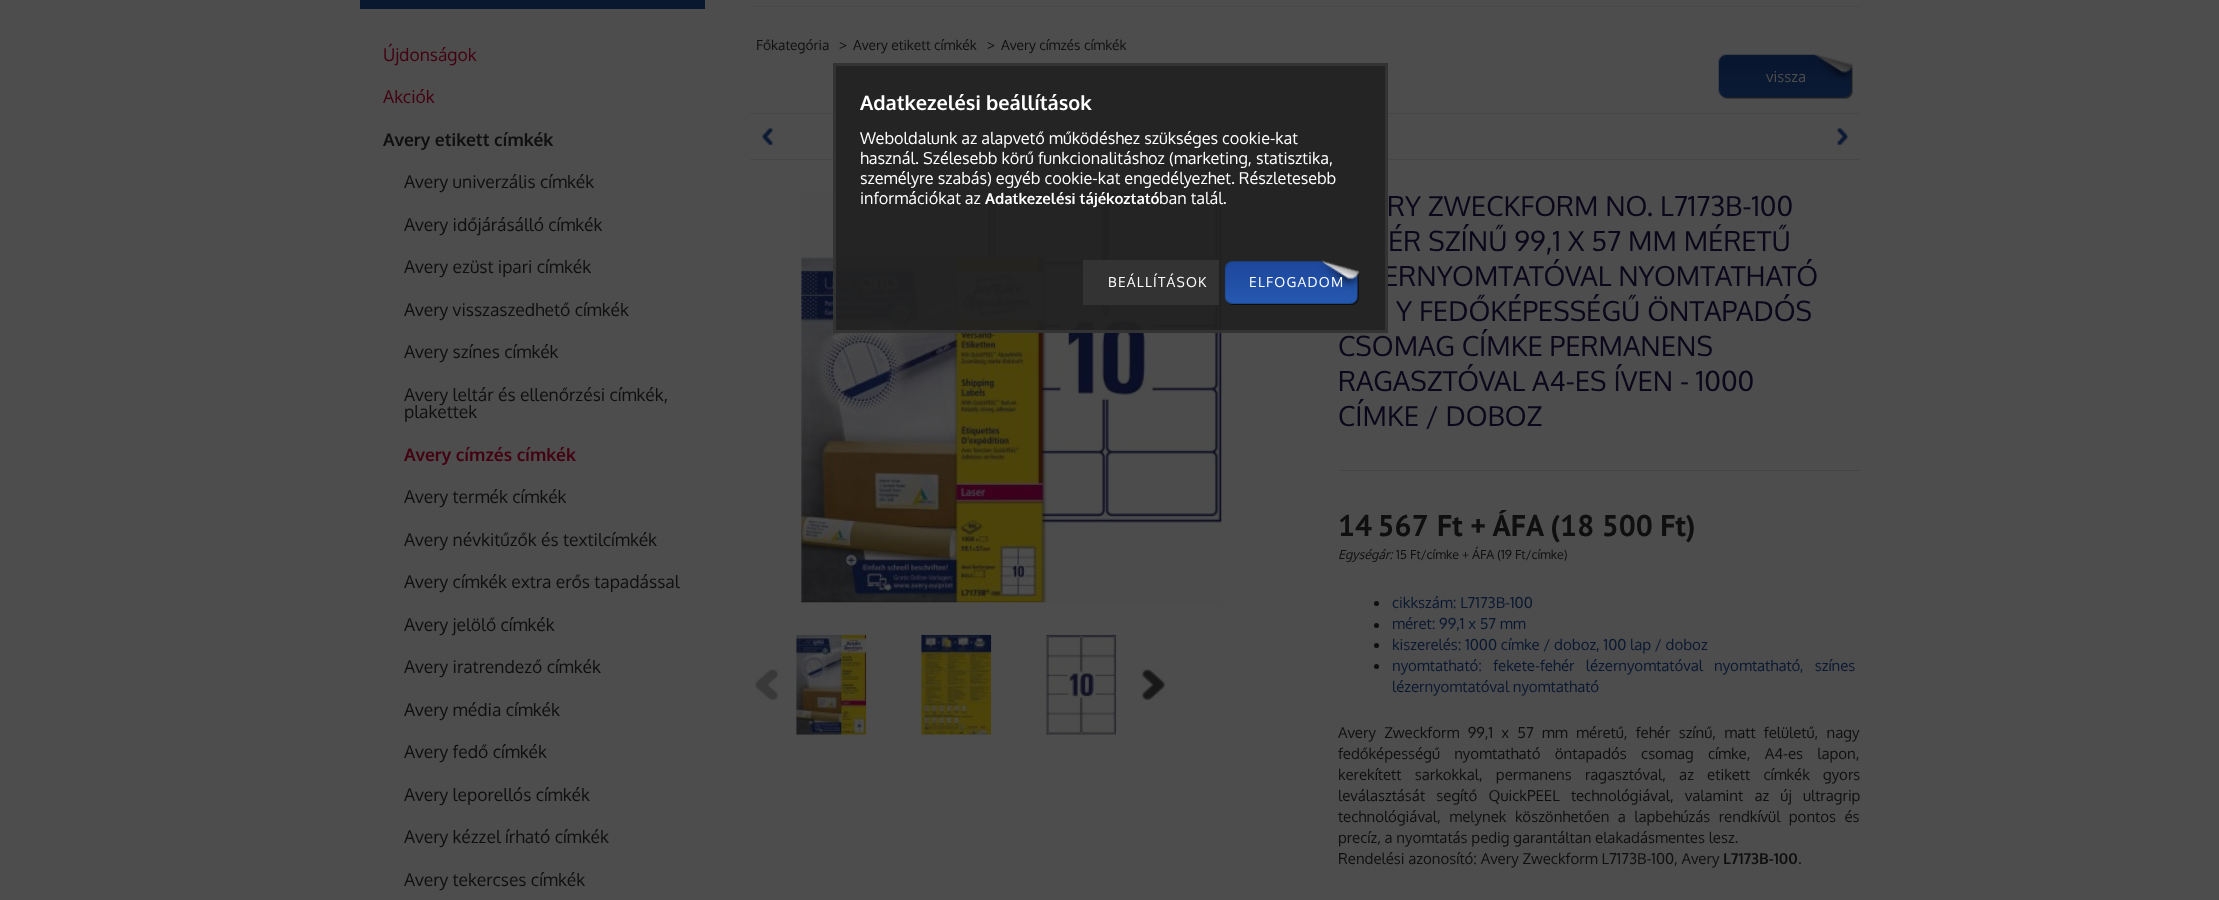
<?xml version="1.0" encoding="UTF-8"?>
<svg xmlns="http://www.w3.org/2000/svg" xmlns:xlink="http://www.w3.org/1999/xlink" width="2219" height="900">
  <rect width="100%" height="100%" fill="#4d4d4d" />
  <rect x="360" width="345" height="9" fill="#09172f" />
  <rect x="750" y="6" width="1110" height="1" fill="#484848" />
  <image x="1718" y="54" width="135" height="45" xlink:href="image1.png" />
  <rect x="750" y="113" width="1110" height="1" fill="#474646" />
  <image x="762" y="128" width="11" height="17" xlink:href="image2.png" />
  <image x="1837" y="128" width="11" height="17" xlink:href="image3.png" />
  <rect x="750" y="159" width="1110" height="1" fill="#474646" />
  <image x="801" y="193" width="421" height="410" xlink:href="image4.png" />
  <image x="755" y="669" width="23" height="31" xlink:href="image5.png" />
  <image x="796" y="634" width="71" height="101" xlink:href="image6.png" />
  <image x="921" y="634" width="71" height="101" xlink:href="image7.png" />
  <image x="1046" y="634" width="71" height="101" xlink:href="image8.png" />
  <image x="1142" y="669" width="24" height="31" xlink:href="image9.png" />
  <rect x="1339" y="470" width="521" height="1" fill="#454545" />
  <circle cx="1376.5" cy="603.5" r="2.5" fill="#0f0f0f" />
  <circle cx="1376.5" cy="625.5" r="2.5" fill="#0f0f0f" />
  <circle cx="1376.5" cy="645.5" r="2.5" fill="#0f0f0f" />
  <circle cx="1376.5" cy="666.5" r="2.5" fill="#0f0f0f" />
  <text x="383" y="61" style="font-family: Oxygen; font-size: 17.5px; fill: #430010">Újdonságok</text>
  <text x="383" y="103" style="font-family: Oxygen; font-size: 17.5px; fill: #430010">Akciók</text>
  <text x="383" y="146" style="font-family: Oxygen; font-size: 17.5px; font-weight: bold; fill: #0f0f0f">Avery etikett címkék</text>
  <text x="404" y="188" style="font-family: Oxygen; font-size: 17.5px; fill: #0f0f0f">Avery univerzális címkék</text>
  <text x="404" y="231" style="font-family: Oxygen; font-size: 17.5px; fill: #0f0f0f">Avery időjárásálló címkék</text>
  <text x="404" y="273" style="font-family: Oxygen; font-size: 17.5px; fill: #0f0f0f">Avery ezüst ipari címkék</text>
  <text x="404" y="316" style="font-family: Oxygen; font-size: 17.5px; fill: #0f0f0f">Avery visszaszedhető címkék</text>
  <text x="404" y="358" style="font-family: Oxygen; font-size: 17.5px; fill: #0f0f0f">Avery színes címkék</text>
  <text x="404" y="401" style="font-family: Oxygen; font-size: 17.5px; fill: #0f0f0f">Avery leltár és ellenőrzési címkék,</text>
  <text x="404" y="418" style="font-family: Oxygen; font-size: 17.5px; fill: #0f0f0f">plakettek</text>
  <text x="404" y="461" style="font-family: Oxygen; font-size: 17.5px; font-weight: bold; fill: #430010">Avery címzés címkék</text>
  <text x="404" y="503" style="font-family: Oxygen; font-size: 17.5px; fill: #0f0f0f">Avery termék címkék</text>
  <text x="404" y="546" style="font-family: Oxygen; font-size: 17.5px; fill: #0f0f0f">Avery névkitűzők és textilcímkék</text>
  <text x="404" y="588" style="font-family: Oxygen; font-size: 17.5px; fill: #0f0f0f">Avery címkék extra erős tapadással</text>
  <text x="404" y="631" style="font-family: Oxygen; font-size: 17.5px; fill: #0f0f0f">Avery jelölő címkék</text>
  <text x="404" y="673" style="font-family: Oxygen; font-size: 17.5px; fill: #0f0f0f">Avery iratrendező címkék</text>
  <text x="404" y="716" style="font-family: Oxygen; font-size: 17.5px; fill: #0f0f0f">Avery média címkék</text>
  <text x="404" y="758" style="font-family: Oxygen; font-size: 17.5px; fill: #0f0f0f">Avery fedő címkék</text>
  <text x="404" y="801" style="font-family: Oxygen; font-size: 17.5px; fill: #0f0f0f">Avery leporellós címkék</text>
  <text x="404" y="843" style="font-family: Oxygen; font-size: 17.5px; fill: #0f0f0f">Avery kézzel írható címkék</text>
  <text x="404" y="886" style="font-family: Oxygen; font-size: 17.5px; fill: #0f0f0f">Avery tekercses címkék</text>
  <text x="756" y="50" style="font-family: Oxygen; font-size: 13.75px; fill: #0f0f0f">Főkategória</text>
  <text x="839" y="50" style="font-family: Oxygen; font-size: 13.75px; fill: #0f0f0f">&gt;</text>
  <text x="853" y="50" style="font-family: Oxygen; font-size: 13.75px; fill: #0f0f0f">Avery etikett címkék</text>
  <text x="987" y="50" style="font-family: Oxygen; font-size: 13.75px; fill: #0f0f0f">&gt;</text>
  <text x="1001" y="50" style="font-family: Oxygen; font-size: 13.75px; fill: #0f0f0f">Avery címzés címkék</text>
  <text x="1766" y="82" style="font-family: Oxygen; font-size: 15px; fill: #4d4d4d">vissza</text>
  <text x="1387" y="216" style="font-family: Oxygen; font-size: 27.5px; fill: #0b061a">RY ZWECKFORM NO. L7173B-100</text>
  <text x="1388" y="251" style="font-family: Oxygen; font-size: 27.5px; fill: #0b061a">ÉR SZÍNŰ 99,1 X 57 MM MÉRETŰ</text>
  <text x="1383" y="286" style="font-family: Oxygen; font-size: 27.5px; fill: #0b061a">ERNYOMTATÓVAL NYOMTATHATÓ</text>
  <text x="1396" y="321" style="font-family: Oxygen; font-size: 27.5px; fill: #0b061a">Y FEDŐKÉPESSÉGŰ ÖNTAPADÓS</text>
  <text x="1338" y="356" style="font-family: Oxygen; font-size: 27.5px; fill: #0b061a">CSOMAG CÍMKE PERMANENS</text>
  <text x="1338" y="391" style="font-family: Oxygen; font-size: 27.5px; fill: #0b061a">RAGASZTÓVAL A4-ES ÍVEN - 1000</text>
  <text x="1338" y="426" style="font-family: Oxygen; font-size: 27.5px; fill: #0b061a">CÍMKE / DOBOZ</text>
  <text x="1338" y="536" word-spacing="-2" style="font-family: PT Sans; font-size: 30px; font-weight: bold; fill: #0f0f0f">14 567</text>
  <text x="1437" y="536" style="font-family: PT Sans; font-size: 30px; font-weight: bold; fill: #0f0f0f">Ft + ÁFA (18 500 Ft)</text>
  <text x="1338" y="559" style="font-family: Oxygen; font-size: 12.5px; font-style: italic; fill: #0f0f0f">Egységár:</text>
  <text x="1396" y="559" style="font-family: Oxygen; font-size: 12.5px; fill: #0f0f0f">15 Ft/címke + ÁFA (19 Ft/címke)</text>
  <text x="1392" y="608" style="font-family: Oxygen; font-size: 15px; fill: #091731">cikkszám: L7173B-100</text>
  <text x="1392" y="629" style="font-family: Oxygen; font-size: 15px; fill: #091731">méret: 99,1 x 57 mm</text>
  <text x="1392" y="650" style="font-family: Oxygen; font-size: 15px; fill: #091731">kiszerelés: 1000 címke / doboz, 100 lap / doboz</text>
  <text x="1392" y="671" word-spacing="7.5" style="font-family: Oxygen; font-size: 15px; fill: #091731">nyomtatható: fekete-fehér lézernyomtatóval nyomtatható, színes</text>
  <text x="1392" y="692" style="font-family: Oxygen; font-size: 15px; fill: #091731">lézernyomtatóval nyomtatható</text>
  <text x="1338" y="738" word-spacing="4.5" style="font-family: Oxygen; font-size: 15px; fill: #0f0f0f">Avery Zweckform 99,1 x 57 mm méretű, fehér színű, matt felületű, nagy</text>
  <text x="1338" y="759" word-spacing="10.5" style="font-family: Oxygen; font-size: 15px; fill: #0f0f0f">fedőképességű nyomtatható öntapadós csomag címke, A4-es lapon,</text>
  <text x="1338" y="780" word-spacing="9.5" style="font-family: Oxygen; font-size: 15px; fill: #0f0f0f">kerekített sarkokkal, permanens ragasztóval, az etikett címkék gyors</text>
  <text x="1338" y="801" word-spacing="7.5" style="font-family: Oxygen; font-size: 15px; fill: #0f0f0f">leválasztását segítő QuickPEEL technológiával, valamint az új ultragrip</text>
  <text x="1338" y="822" word-spacing="4.75" style="font-family: Oxygen; font-size: 15px; fill: #0f0f0f">technológiával, melynek köszönhetően a lapbehúzás rendkívül pontos és</text>
  <text x="1338" y="843" style="font-family: Oxygen; font-size: 15px; fill: #0f0f0f">precíz, a nyomtatás pedig garantáltan elakadásmentes lesz.</text>
  <text x="1338" y="864" style="font-family: Oxygen; font-size: 15px; fill: #0f0f0f">Rendelési azonosító: Avery Zweckform L7173B-100, Avery</text>
  <text x="1723" y="864" style="font-family: Oxygen; font-size: 15px; font-weight: bold; fill: #0f0f0f">L7173B-100</text>
  <text x="1798" y="864" style="font-family: Oxygen; font-size: 15px; fill: #0f0f0f">.</text>
  <rect x="834.5" y="64.5" width="552" height="267" fill="#222222" fill-opacity="0.95" stroke="#333333" stroke-width="3" />
  <text x="860" y="110" style="font-family: Oxygen; font-size: 20px; font-weight: bold; fill: #ffffff">Adatkezelési beállítások</text>
  <text x="860" y="144" style="font-family: Oxygen; font-size: 16.25px; fill: #ffffff">Weboldalunk az alapvető működéshez szükséges cookie-kat</text>
  <text x="860" y="164" style="font-family: Oxygen; font-size: 16.25px; fill: #ffffff">használ. Szélesebb körű funkcionalitáshoz (marketing, statisztika,</text>
  <text x="860" y="184" style="font-family: Oxygen; font-size: 16.25px; fill: #ffffff">személyre szabás) egyéb cookie-kat engedélyezhet. Részletesebb</text>
  <text x="860" y="204" style="font-family: Oxygen; font-size: 16.25px; fill: #ffffff">információkat az</text>
  <text x="985" y="204" style="font-family: Oxygen; font-size: 15px; font-weight: bold; fill: #ffffff">Adatkezelési tájékoztató</text>
  <text x="1159" y="204" style="font-family: Oxygen; font-size: 16.25px; fill: #ffffff">ban talál.</text>
  <rect x="1083" y="260" width="136" height="45" fill="#333333" />
  <text x="1108" y="287" style="font-family: Oxygen; font-size: 13.75px; letter-spacing: 1.25px; fill: #ffffff">BEÁLLÍTÁSOK</text>
  <image x="1224" y="260" width="135" height="45" xlink:href="image10.png" />
  <text x="1249" y="287" style="font-family: Oxygen; font-size: 13.75px; letter-spacing: 1.25px; fill: #ffffff">ELFOGADOM</text>
</svg>
